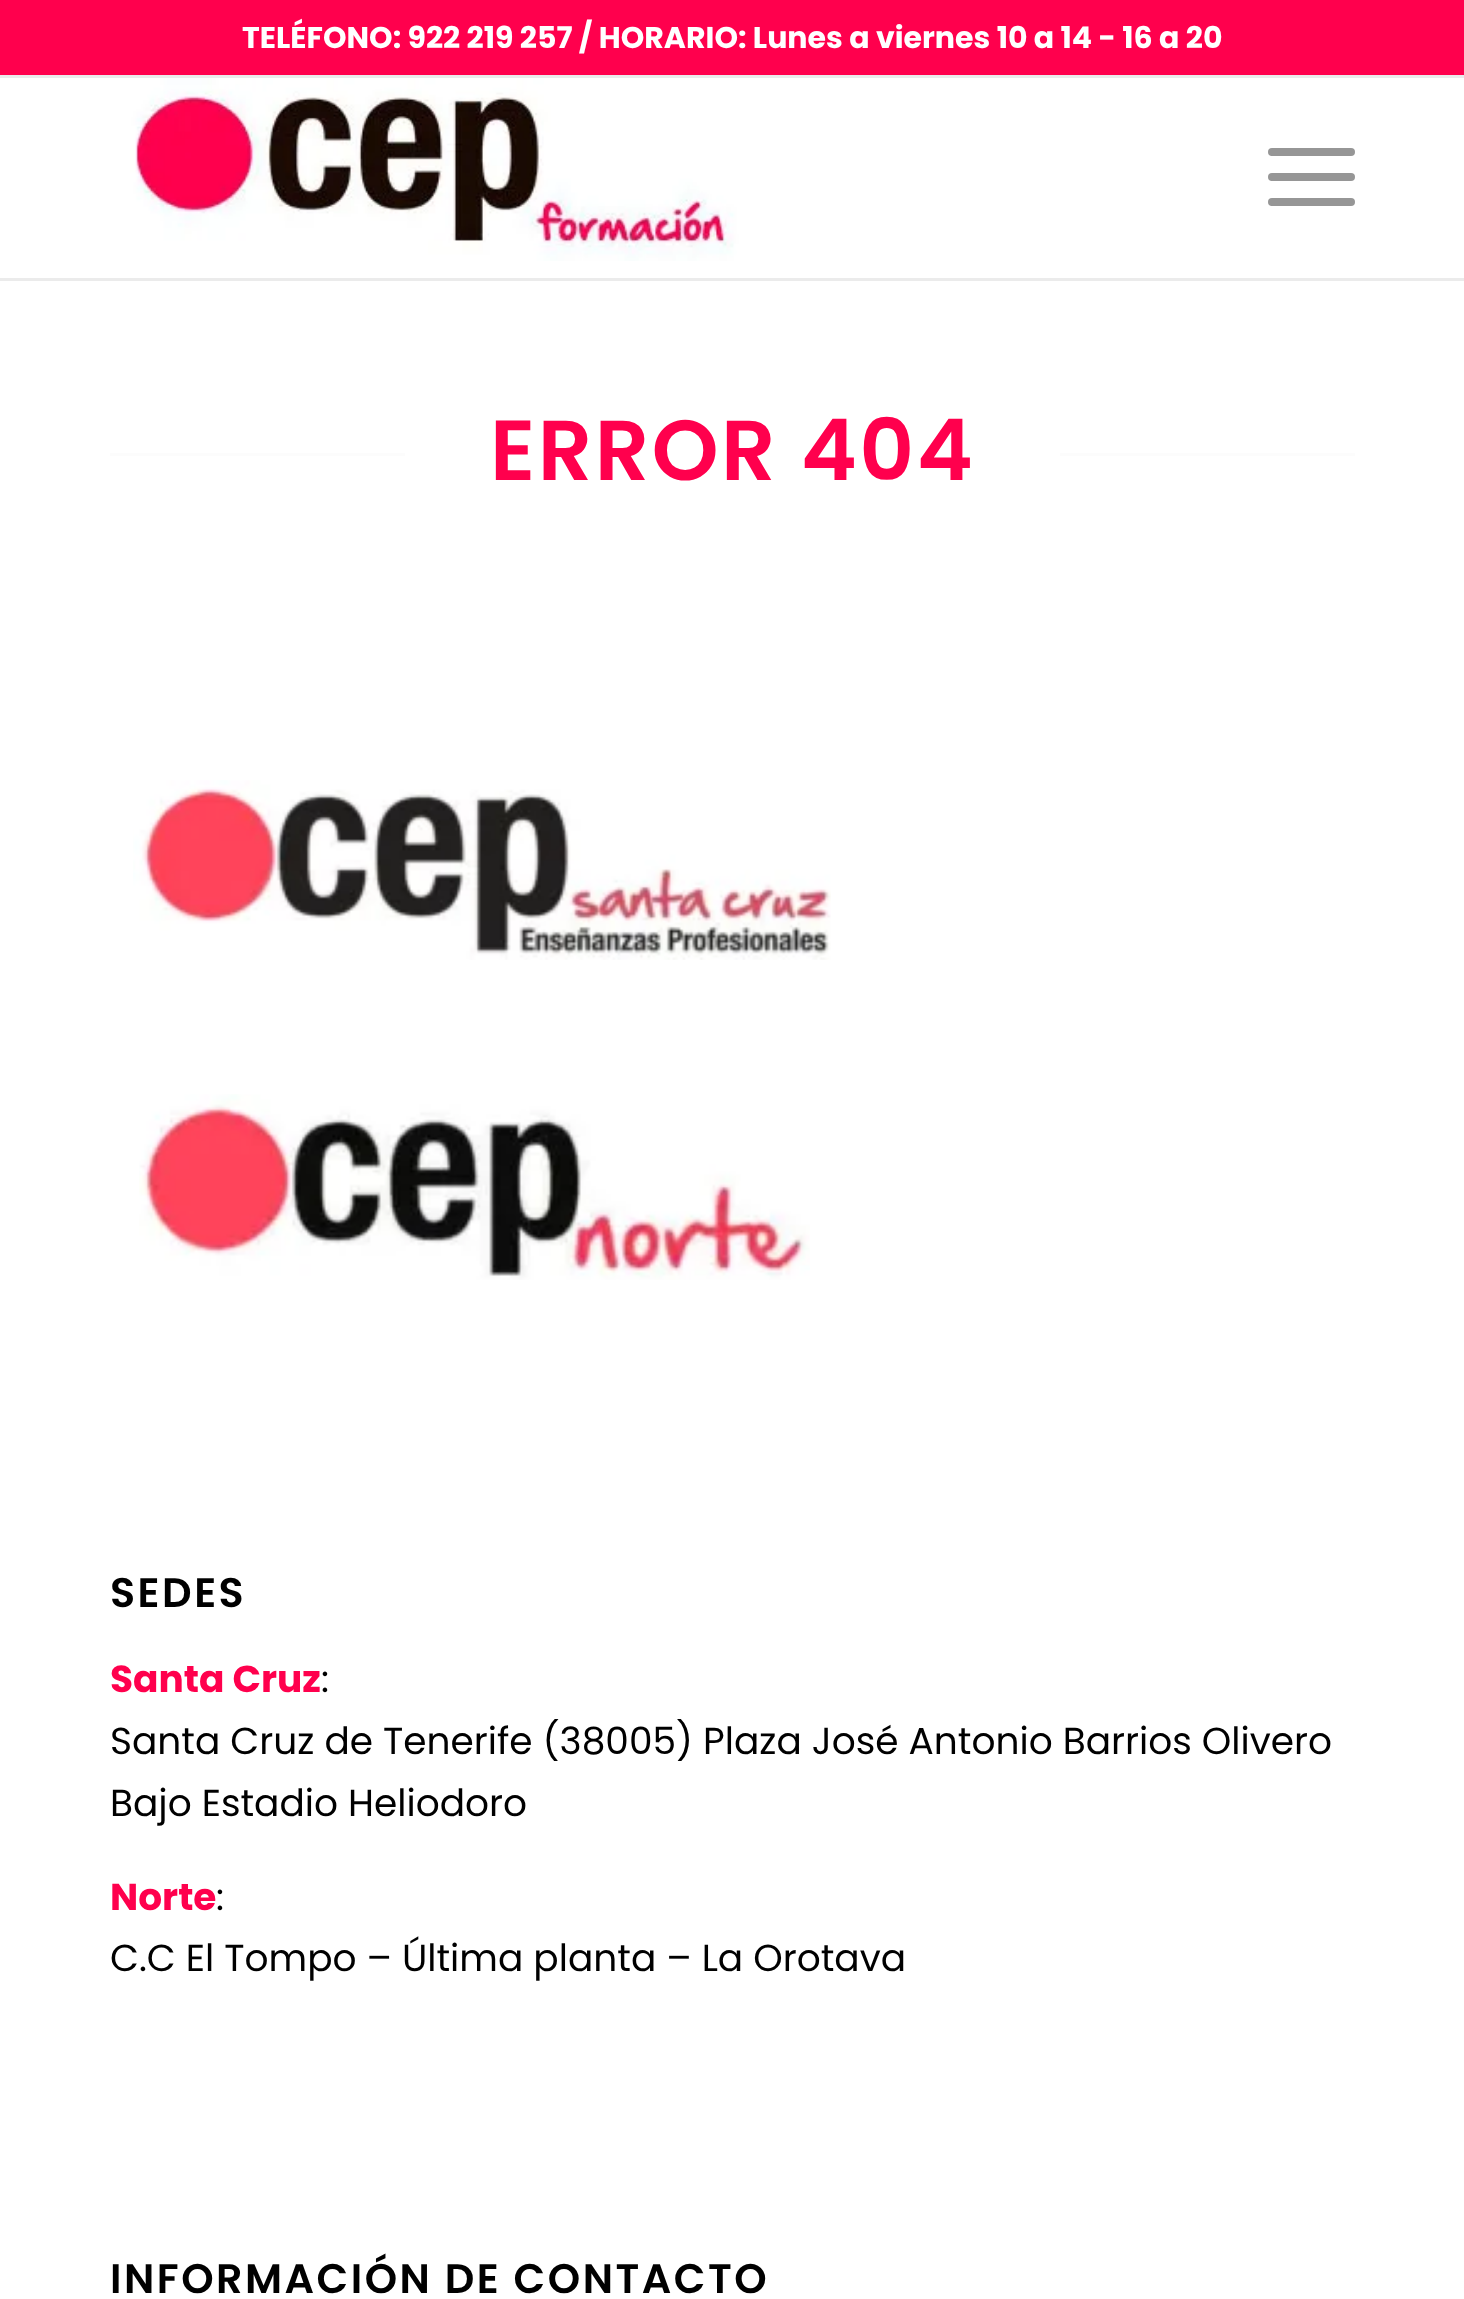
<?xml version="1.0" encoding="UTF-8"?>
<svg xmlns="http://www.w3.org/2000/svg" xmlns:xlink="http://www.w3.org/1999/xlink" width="1464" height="2299">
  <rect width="100%" height="100%" fill="#ffffff" />
  <rect width="1464" height="75" fill="#ff004d" />
  <rect y="75" width="1464" height="3" fill="#ebebeb" />
  <rect y="278" width="1464" height="3" fill="#ebebeb" />
  <image x="110" y="78" width="630" height="183" xlink:href="image1.png" />
  <rect x="1268" y="173" width="87" height="8" rx="4" fill="#969696" />
  <rect x="1268" y="148" width="87" height="8" rx="4" fill="#969696" />
  <rect x="1268" y="198" width="87" height="8" rx="4" fill="#969696" />
  <rect x="110" y="453" width="295" height="3" fill="#fcfcfc" />
  <rect x="1060" y="453" width="295" height="3" fill="#fcfcfc" />
  <image x="133" y="780" width="698" height="180" xlink:href="image2.png" />
  <image x="139" y="1094" width="671" height="186" xlink:href="image3.png" />
  <text x="242" y="48" style="font-family: Poppins; font-size: 30px; font-weight: bold; fill: #ffffff">TELÉFONO: 922 219 257 / HORARIO: Lunes a viernes 10 a 14 - 16 a 20</text>
  <text x="490" y="480" style="font-family: Poppins; font-size: 85px; font-weight: 600; letter-spacing: 2.5px; fill: #ff004d">ERROR 404</text>
  <text x="110" y="1607" style="font-family: Poppins; font-size: 41.25px; font-weight: 600; letter-spacing: 2.5px; fill: #000000">SEDES</text>
  <text x="110" y="1692" style="font-family: Poppins; font-size: 37.5px; font-weight: bold; fill: #ff004d">Santa Cruz</text>
  <text x="321" y="1692" style="font-family: Poppins; font-size: 37.5px; fill: #000000">:</text>
  <text x="110" y="1754" style="font-family: Poppins; font-size: 37.5px; fill: #000000">Santa Cruz de Tenerife (38005) Plaza José Antonio Barrios Olivero</text>
  <text x="110" y="1816" style="font-family: Poppins; font-size: 37.5px; fill: #000000">Bajo Estadio Heliodoro</text>
  <text x="110" y="1910" style="font-family: Poppins; font-size: 37.5px; font-weight: bold; fill: #ff004d">Norte</text>
  <text x="216" y="1910" style="font-family: Poppins; font-size: 37.5px; fill: #000000">:</text>
  <text x="110" y="1971" style="font-family: Poppins; font-size: 37.5px; fill: #000000">C.C El Tompo – Última planta – La Orotava</text>
  <text x="110" y="2293" style="font-family: Poppins; font-size: 41.25px; font-weight: 600; letter-spacing: 2.5px; fill: #000000">INFORMACIÓN DE CONTACTO</text>
</svg>
